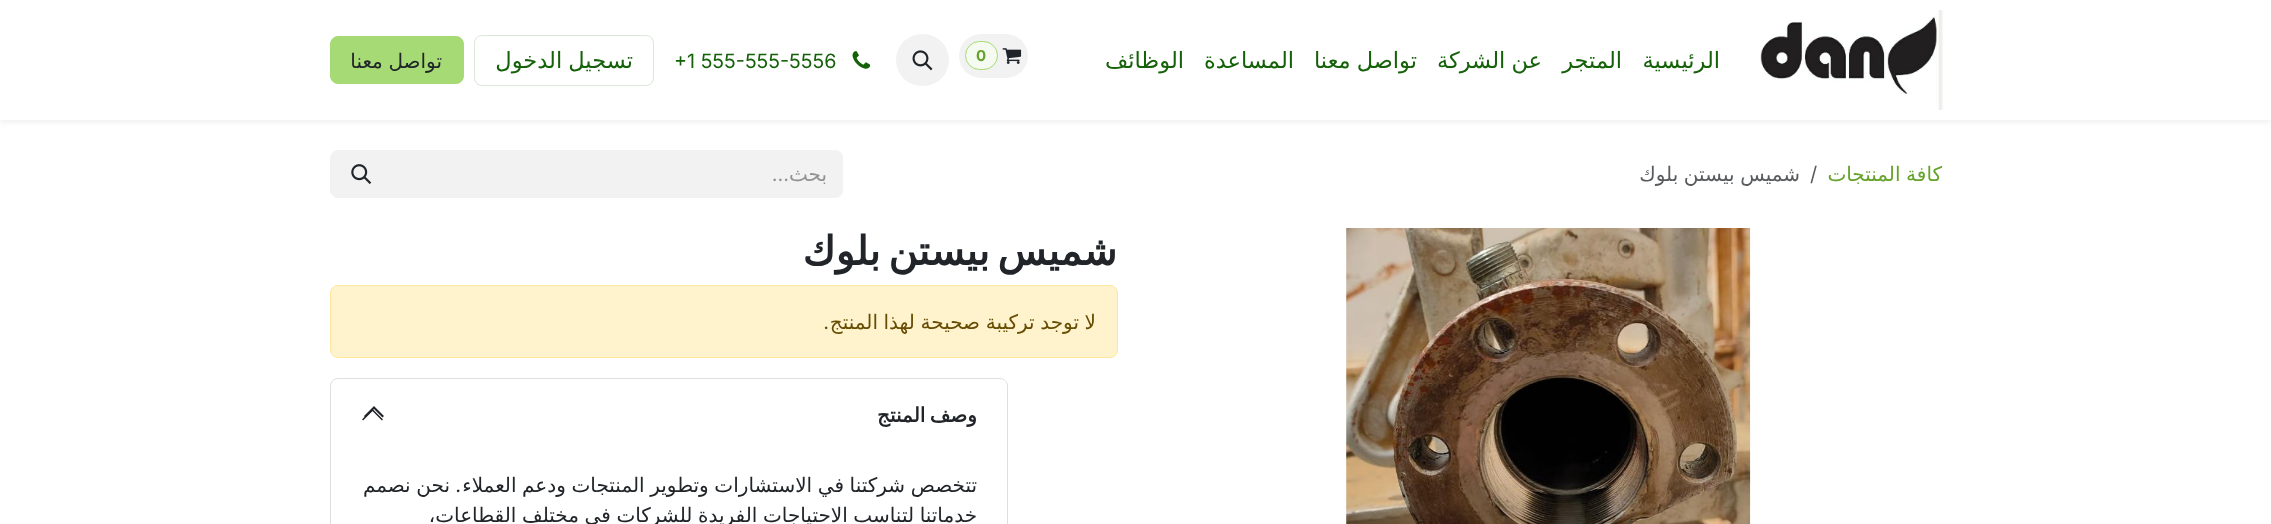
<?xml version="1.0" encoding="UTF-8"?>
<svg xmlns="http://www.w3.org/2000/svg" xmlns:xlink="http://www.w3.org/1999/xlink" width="2271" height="524">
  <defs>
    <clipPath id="clip1"><rect x="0" y="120" width="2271" height="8" /></clipPath>
  </defs>
  <rect width="100%" height="100%" fill="#ffffff" />
  <g clip-path="url(#clip1)">
    <rect y="3" width="2271" height="120" fill="#f3f2f2" filter="blur(2.5px)" />
  </g>
  <image x="1760" y="10" width="183" height="100" xlink:href="image1.png" />
  <rect x="959" y="34" width="69" height="44" rx="22" fill="#f2f2f2" />
  <image x="1002" y="48" width="20" height="16" xlink:href="image2.png" />
  <rect x="965.5" y="41.5" width="32" height="28" rx="14" fill="#f6fbf1" stroke="#a5da74" />
  <rect x="896" y="34" width="53" height="52" rx="26" fill="#f2f2f2" />
  <image x="912" y="50" width="21" height="21" xlink:href="image3.png" />
  <image x="852" y="51" width="19" height="18" xlink:href="image4.png" />
  <rect x="474.5" y="35.5" width="179" height="50" rx="7.5" fill="none" stroke="#dce7da" />
  <rect x="330.5" y="36.5" width="133" height="47" rx="7.5" fill="#a5da74" stroke="#a5da74" />
  <path d="M 391 150 h 444 c 4.5 0 8 3.5 8 8 v 32 c 0 4.5 -3.5 8 -8 8 h -444 z" fill="#f3f2f2" />
  <path d="M 338 150.5 h 54.5 v 47 h -54.5 c -4 0 -7.5 -3.5 -7.5 -7.5 v -32 c 0 -4 3.5 -7.5 7.5 -7.5 z" fill="#f3f2f2" stroke="#f3f2f2" />
  <image x="351" y="164" width="21" height="20" xlink:href="image5.png" />
  <image x="1346" y="228" width="405" height="296" xlink:href="image6.png" />
  <rect x="330.5" y="285.5" width="787" height="72" rx="7.5" fill="#fff3cd" stroke="#ffe69c" />
  <path d="M 338 378.5 h 662 c 4 0 7.5 3.5 7.5 7.5 v 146.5 h -677 v -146.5 c 0 -4 3.5 -7.5 7.5 -7.5 z" fill="none" stroke="#dededf" />
  <path d="M 382 419.5 l -9.5 -9.5 l -9.5 9.5" fill="none" stroke="#212529" stroke-width="1.6" stroke-linecap="round" stroke-linejoin="round" />
  <path d="M 374 406 l 10 10 l -1.5 1.5 l -8.5 -8.5 l -9 8.5 l -1 -1.5 z" fill="#212529" />
  <text x="1720" y="68" style="font-family: DejaVu Sans; font-size: 22.5px; direction: rtl; fill: #156109">الرئيسية</text>
  <text x="1622" y="68" style="font-family: DejaVu Sans; font-size: 22.5px; direction: rtl; fill: #156109">المتجر</text>
  <text x="1542" y="68" word-spacing="-1" style="font-family: DejaVu Sans; font-size: 22.5px; direction: rtl; fill: #156109">عن الشركة</text>
  <text x="1417" y="68" word-spacing="-1" style="font-family: DejaVu Sans; font-size: 22.5px; direction: rtl; fill: #156109">تواصل معنا</text>
  <text x="1294" y="68" style="font-family: DejaVu Sans; font-size: 22.5px; direction: rtl; fill: #156109">المساعدة</text>
  <text x="1184" y="68" style="font-family: DejaVu Sans; font-size: 22.5px; direction: rtl; fill: #156109">الوظائف</text>
  <text x="976" y="61" style="font-family: Inter; font-size: 15px; font-weight: bold; fill: #65a32b">0</text>
  <text x="674" y="68" style="font-family: Inter; font-size: 19.75px; fill: #156109">+1 555-555-5556</text>
  <text x="633" y="68" word-spacing="-1" style="font-family: DejaVu Sans; font-size: 22.5px; direction: rtl; fill: #156109">تسجيل الدخول</text>
  <text x="442" y="68" word-spacing="-0.75" style="font-family: DejaVu Sans; font-size: 20px; direction: rtl; fill: #212529">تواصل معنا</text>
  <text x="1942" y="181" word-spacing="-0.75" style="font-family: DejaVu Sans; font-size: 20px; direction: rtl; fill: #65a32b">كافة المنتجات</text>
  <text x="1810" y="181" style="font-family: Inter; font-size: 20px; fill: #595c5f">/</text>
  <text x="1800" y="181" word-spacing="-0.75" style="font-family: DejaVu Sans; font-size: 20px; direction: rtl; fill: #595c5f">شميس بيستن بلوك</text>
  <text x="827" y="181" style="font-family: DejaVu Sans; font-size: 20px; direction: rtl; fill: #909294">بحث</text>
  <text x="789" y="181" style="font-family: Inter; font-size: 20px; direction: rtl; fill: #909294">...</text>
  <text x="1117" y="265" word-spacing="-5" style="font-family: DejaVu Sans; font-size: 40px; font-weight: bold; direction: rtl; fill: #212529">شميس بيستن بلوك</text>
  <text x="1096" y="329" word-spacing="-0.75" style="font-family: DejaVu Sans; font-size: 20px; direction: rtl; fill: #664d03">لا توجد تركيبة صحيحة لهذا المنتج</text>
  <text x="829" y="329" style="font-family: Inter; font-size: 20px; direction: rtl; fill: #664d03">.</text>
  <text x="977" y="422" word-spacing="-2" style="font-family: DejaVu Sans; font-size: 20px; font-weight: bold; direction: rtl; fill: #212529">وصف المنتج</text>
  <text x="977" y="492" word-spacing="-0.75" style="font-family: DejaVu Sans; font-size: 20px; direction: rtl; fill: #212529">تتخصص شركتنا في الاستشارات وتطوير المنتجات ودعم العملاء</text>
  <text x="461" y="492" style="font-family: Inter; font-size: 20px; direction: rtl; fill: #212529">.</text>
  <text x="450" y="492" word-spacing="-0.75" style="font-family: DejaVu Sans; font-size: 20px; direction: rtl; fill: #212529">نحن نصمم</text>
  <text x="977" y="522" word-spacing="-0.75" style="font-family: DejaVu Sans; font-size: 20px; direction: rtl; fill: #212529">خدماتنا لتناسب الاحتياجات الفريدة للشركات في مختلف القطاعات،</text>
</svg>
